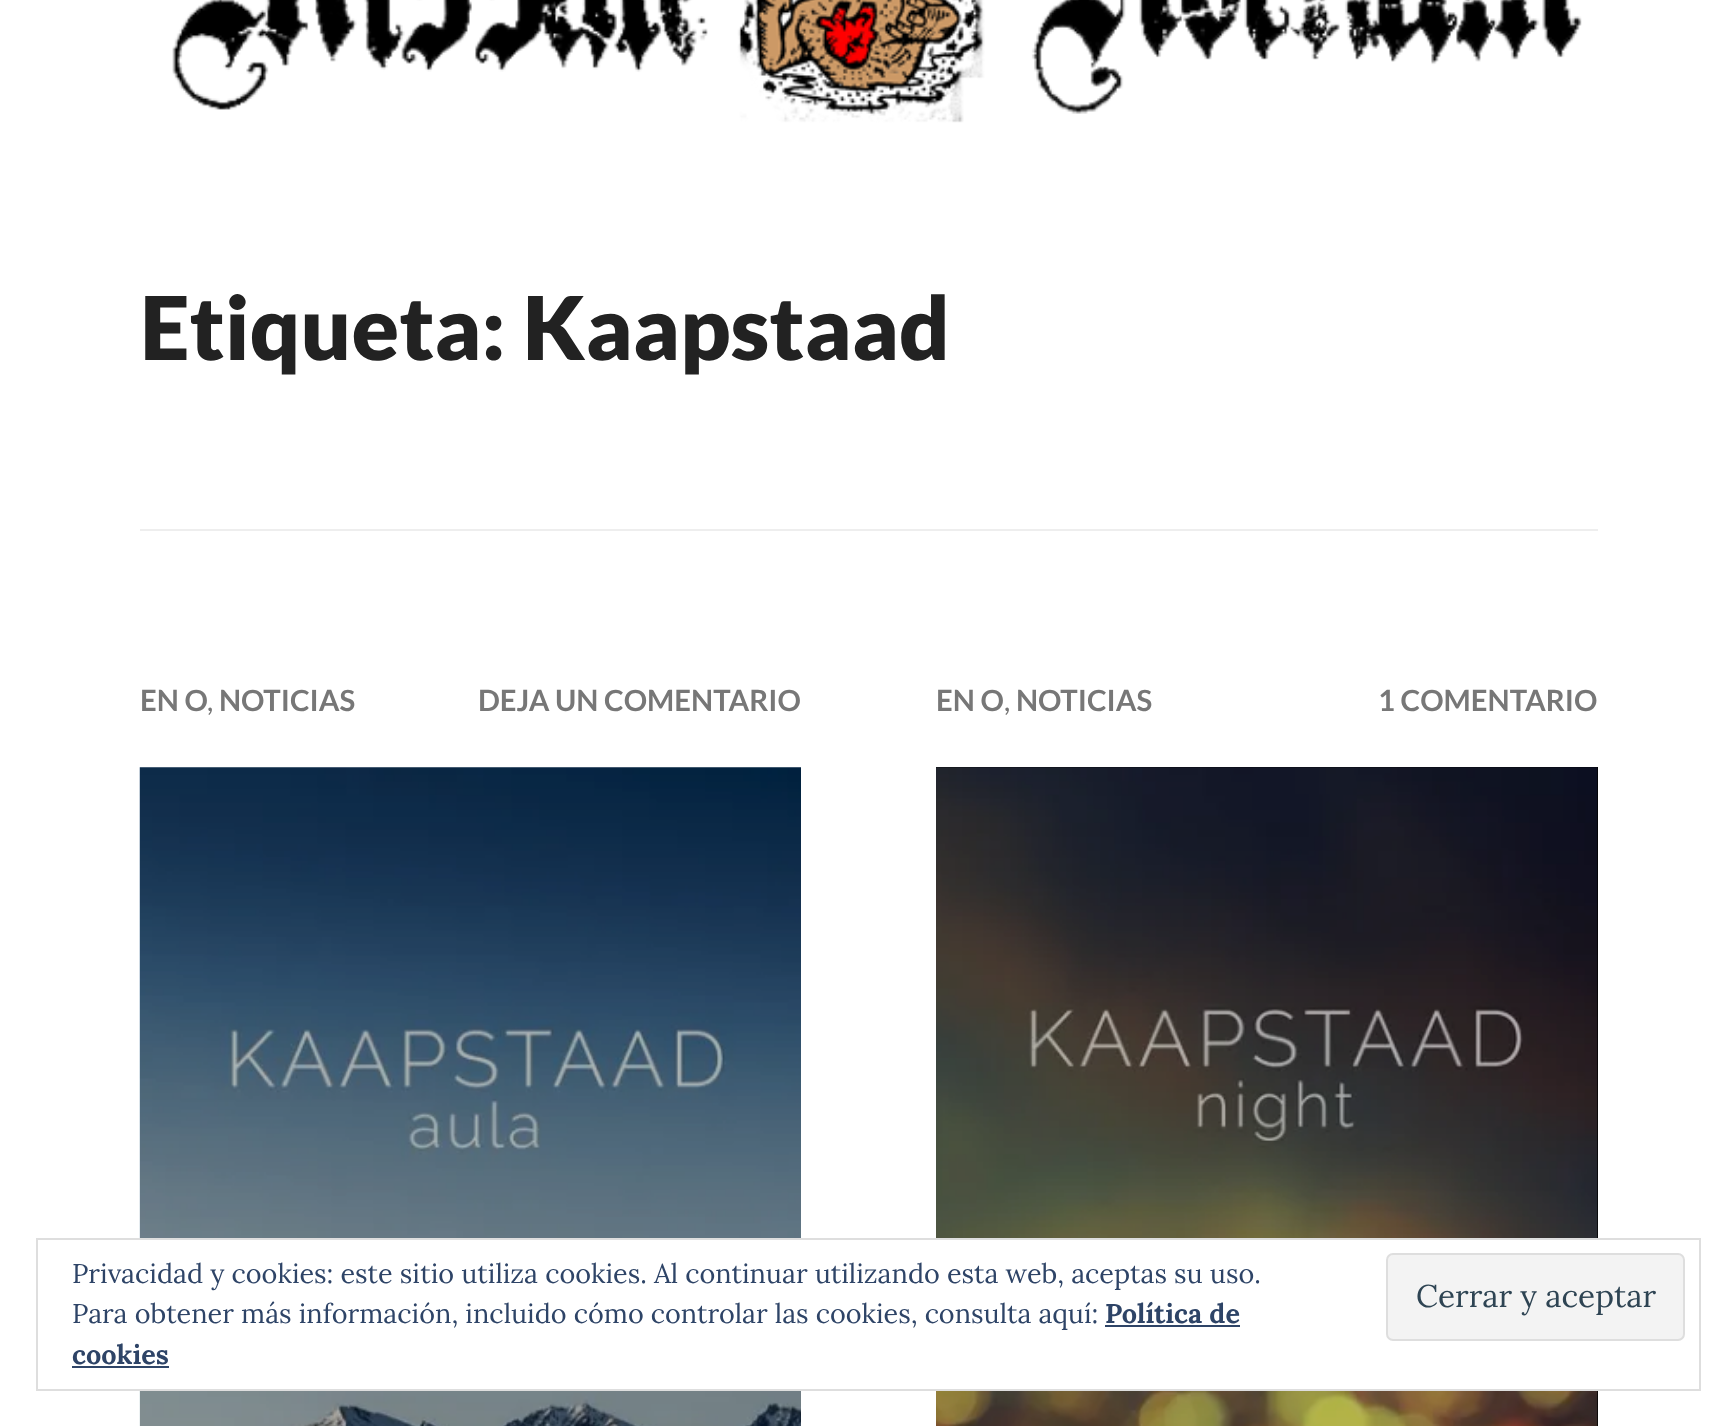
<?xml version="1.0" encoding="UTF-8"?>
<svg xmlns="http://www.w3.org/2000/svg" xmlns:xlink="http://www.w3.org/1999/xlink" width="1735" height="1426">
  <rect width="100%" height="100%" fill="#ffffff" />
  <image x="172" y="0" width="1410" height="123" xlink:href="image1.png" />
  <rect x="140" y="529" width="1458" height="2" fill="#eeeeee" />
  <image x="139" y="767" width="662" height="659" xlink:href="image2.png" />
  <rect x="936" y="767" width="662" height="659" fill="#000000" />
  <image x="936" y="767" width="662" height="659" xlink:href="image3.png" />
  <rect x="139" y="1240" width="1459" height="149" fill="#ffffff" />
  <rect x="37" y="1239" width="1663" height="151" fill="none" stroke="#dedede" stroke-width="2" />
  <rect x="1105" y="1325" width="135" height="2" fill="#2e4467" />
  <rect x="1387" y="1254" width="297" height="86" rx="6" fill="#f3f3f3" stroke="#dedede" stroke-width="2" />
  <rect x="72" y="1366" width="97" height="2" fill="#2e4467" />
  <text x="140" y="360" style="font-family: Lato; font-size: 87.75px; font-weight: 900; fill: #222222">Etiqueta: Kaapstaad</text>
  <text x="140" y="711" style="font-family: Lato; font-size: 29.25px; font-weight: bold; fill: #777777">EN O</text>
  <text x="207" y="711" style="font-family: Lato; font-size: 29.25px; fill: #777777">,</text>
  <text x="219" y="711" style="font-family: Lato; font-size: 29.25px; font-weight: bold; fill: #777777">NOTICIAS</text>
  <text x="478" y="711" style="font-family: Lato; font-size: 29.25px; font-weight: bold; fill: #777777">DEJA UN COMENTARIO</text>
  <text x="936" y="711" style="font-family: Lato; font-size: 29.25px; font-weight: bold; fill: #777777">EN O</text>
  <text x="1004" y="711" style="font-family: Lato; font-size: 29.25px; fill: #777777">,</text>
  <text x="1016" y="711" style="font-family: Lato; font-size: 29.25px; font-weight: bold; fill: #777777">NOTICIAS</text>
  <text x="1378" y="711" style="font-family: Lato; font-size: 29.25px; font-weight: bold; fill: #777777">1 COMENTARIO</text>
  <text x="72" y="1283" style="font-family: Lora; font-size: 27px; fill: #2e4467">Privacidad y cookies: este sitio utiliza cookies. Al continuar utilizando esta web, aceptas su uso.</text>
  <text x="72" y="1323" style="font-family: Lora; font-size: 27px; fill: #2e4467">Para obtener más información, incluido cómo controlar las cookies, consulta aquí:</text>
  <text x="1105" y="1323" style="font-family: Lora; font-size: 27px; font-weight: bold; fill: #2e4467">Política de</text>
  <text x="1416" y="1307" style="font-family: Lora; font-size: 31.5px; fill: #2e4453">Cerrar y aceptar</text>
  <text x="72" y="1364" style="font-family: Lora; font-size: 27px; font-weight: bold; fill: #2e4467">cookies</text>
</svg>
